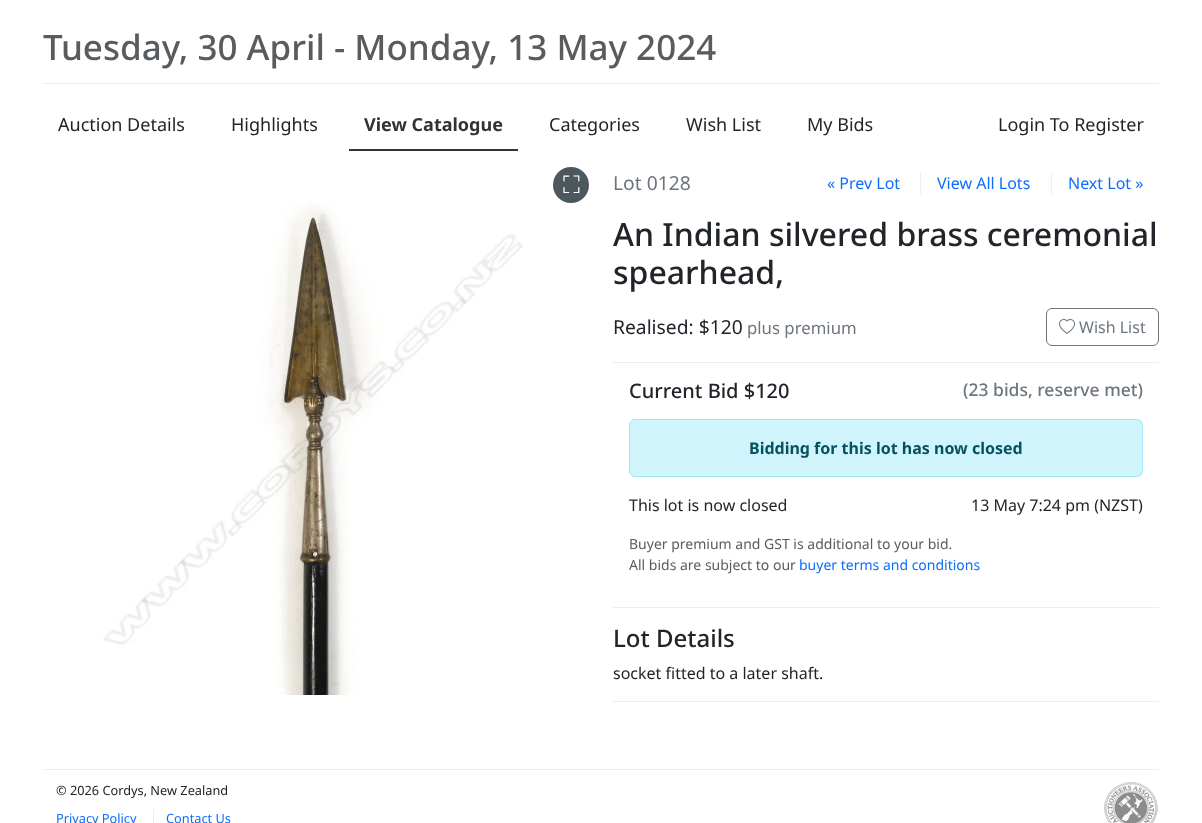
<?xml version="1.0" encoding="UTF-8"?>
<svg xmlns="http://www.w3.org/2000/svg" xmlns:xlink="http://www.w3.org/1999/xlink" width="1202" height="823">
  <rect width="100%" height="100%" fill="#ffffff" />
  <rect x="43" y="83" width="1116" height="1" fill="#eeeeee" />
  <rect x="349" y="149" width="169" height="2" fill="#333333" />
  <circle cx="571" cy="185" r="18" fill="#4c585d" />
  <image x="103" y="203" width="420" height="492" xlink:href="image1.png" />
  <rect x="920" y="172" width="1" height="22" fill="#eeeeee" />
  <rect x="1051" y="172" width="1" height="22" fill="#eeeeee" />
  <rect x="1046.5" y="308.5" width="112" height="37" rx="5.5" fill="none" stroke="#6c757d" />
  <image x="1059" y="319" width="16" height="15" xlink:href="image2.png" />
  <rect x="613" y="362" width="546" height="1" fill="#eeeeee" />
  <rect x="629.5" y="419.5" width="513" height="57" rx="5.5" fill="#cff4fc" stroke="#9eeaf9" />
  <rect x="613" y="607" width="546" height="1" fill="#eeeeee" />
  <rect x="613" y="701" width="546" height="1" fill="#eeeeee" />
  <rect x="43" y="769" width="1116" height="1" fill="#eeeeee" />
  <image x="1104" y="782" width="54" height="41" xlink:href="image3.png" />
  <rect x="153" y="809" width="1" height="14" fill="#eeeeee" />
  <text x="43" y="60" style="font-family: Noto Sans; font-size: 35px; font-weight: 500; fill: #595c5f">Tuesday, 30 April - Monday, 13 May 2024</text>
  <text x="58" y="131" style="font-family: Noto Sans; font-size: 18px; fill: #212529">Auction Details</text>
  <text x="231" y="131" style="font-family: Noto Sans; font-size: 18px; fill: #212529">Highlights</text>
  <text x="364" y="131" style="font-family: Noto Sans; font-size: 18px; font-weight: bold; fill: #333333">View Catalogue</text>
  <text x="549" y="131" style="font-family: Noto Sans; font-size: 18px; fill: #212529">Categories</text>
  <text x="686" y="131" style="font-family: Noto Sans; font-size: 18px; fill: #212529">Wish List</text>
  <text x="807" y="131" style="font-family: Noto Sans; font-size: 18px; fill: #212529">My Bids</text>
  <text x="998" y="131" style="font-family: Noto Sans; font-size: 18px; fill: #212529">Login To Register</text>
  <text x="563" y="193" style="font-family: FreeSans; font-size: 24px; fill: #ffffff">⛶</text>
  <text x="613" y="190" style="font-family: Noto Sans; font-size: 19.25px; fill: #6c757d">Lot 0128</text>
  <text x="827" y="189" style="font-family: Noto Sans; font-size: 16px; fill: #0d6efd">« Prev Lot</text>
  <text x="937" y="189" style="font-family: Noto Sans; font-size: 16px; fill: #0d6efd">View All Lots</text>
  <text x="1068" y="189" style="font-family: Noto Sans; font-size: 16px; fill: #0d6efd">Next Lot »</text>
  <text x="613" y="246" style="font-family: Noto Sans; font-size: 32px; font-weight: 500; fill: #212529">An Indian silvered brass ceremonial</text>
  <text x="613" y="284" style="font-family: Noto Sans; font-size: 32px; font-weight: 500; fill: #212529">spearhead,</text>
  <text x="613" y="334" style="font-family: Noto Sans; font-size: 19.25px; fill: #212529">Realised: $120</text>
  <text x="747" y="334" style="font-family: Noto Sans; font-size: 16.75px; fill: #6c757d">plus premium</text>
  <text x="1079" y="333" style="font-family: Noto Sans; font-size: 16px; fill: #6c757d">Wish List</text>
  <text x="629" y="398" style="font-family: Noto Sans; font-size: 20px; font-weight: 500; fill: #212529">Current Bid $120</text>
  <text x="963" y="396" style="font-family: Noto Sans; font-size: 17.5px; font-weight: 500; fill: #6c757d">(23 bids, reserve met)</text>
  <text x="749" y="454" style="font-family: Noto Sans; font-size: 16px; font-weight: bold; fill: #055160">Bidding for this lot has now closed</text>
  <text x="629" y="511" style="font-family: Noto Sans; font-size: 16px; fill: #212529">This lot is now closed</text>
  <text x="971" y="511" style="font-family: Noto Sans; font-size: 16px; fill: #212529">13 May 7:24 pm (NZST)</text>
  <text x="629" y="549" style="font-family: Noto Sans; font-size: 14px; fill: #595c5f">Buyer premium and GST is additional to your bid.</text>
  <text x="629" y="570" style="font-family: Noto Sans; font-size: 14px; fill: #595c5f">All bids are subject to our</text>
  <text x="799" y="570" style="font-family: Noto Sans; font-size: 14px; fill: #0d6efd">buyer terms and conditions</text>
  <text x="613" y="647" style="font-family: Noto Sans; font-size: 24px; font-weight: 500; fill: #212529">Lot Details</text>
  <text x="613" y="679" style="font-family: Noto Sans; font-size: 16px; fill: #212529">socket fitted to a later shaft.</text>
  <text x="56" y="795" style="font-family: Noto Sans; font-size: 12.75px; fill: #212529">© 2026 Cordys, New Zealand</text>
  <text x="56" y="823" style="font-family: Noto Sans; font-size: 12.75px; fill: #0d6efd">Privacy Policy</text>
  <text x="166" y="823" style="font-family: Noto Sans; font-size: 12.75px; fill: #0d6efd">Contact Us</text>
</svg>
